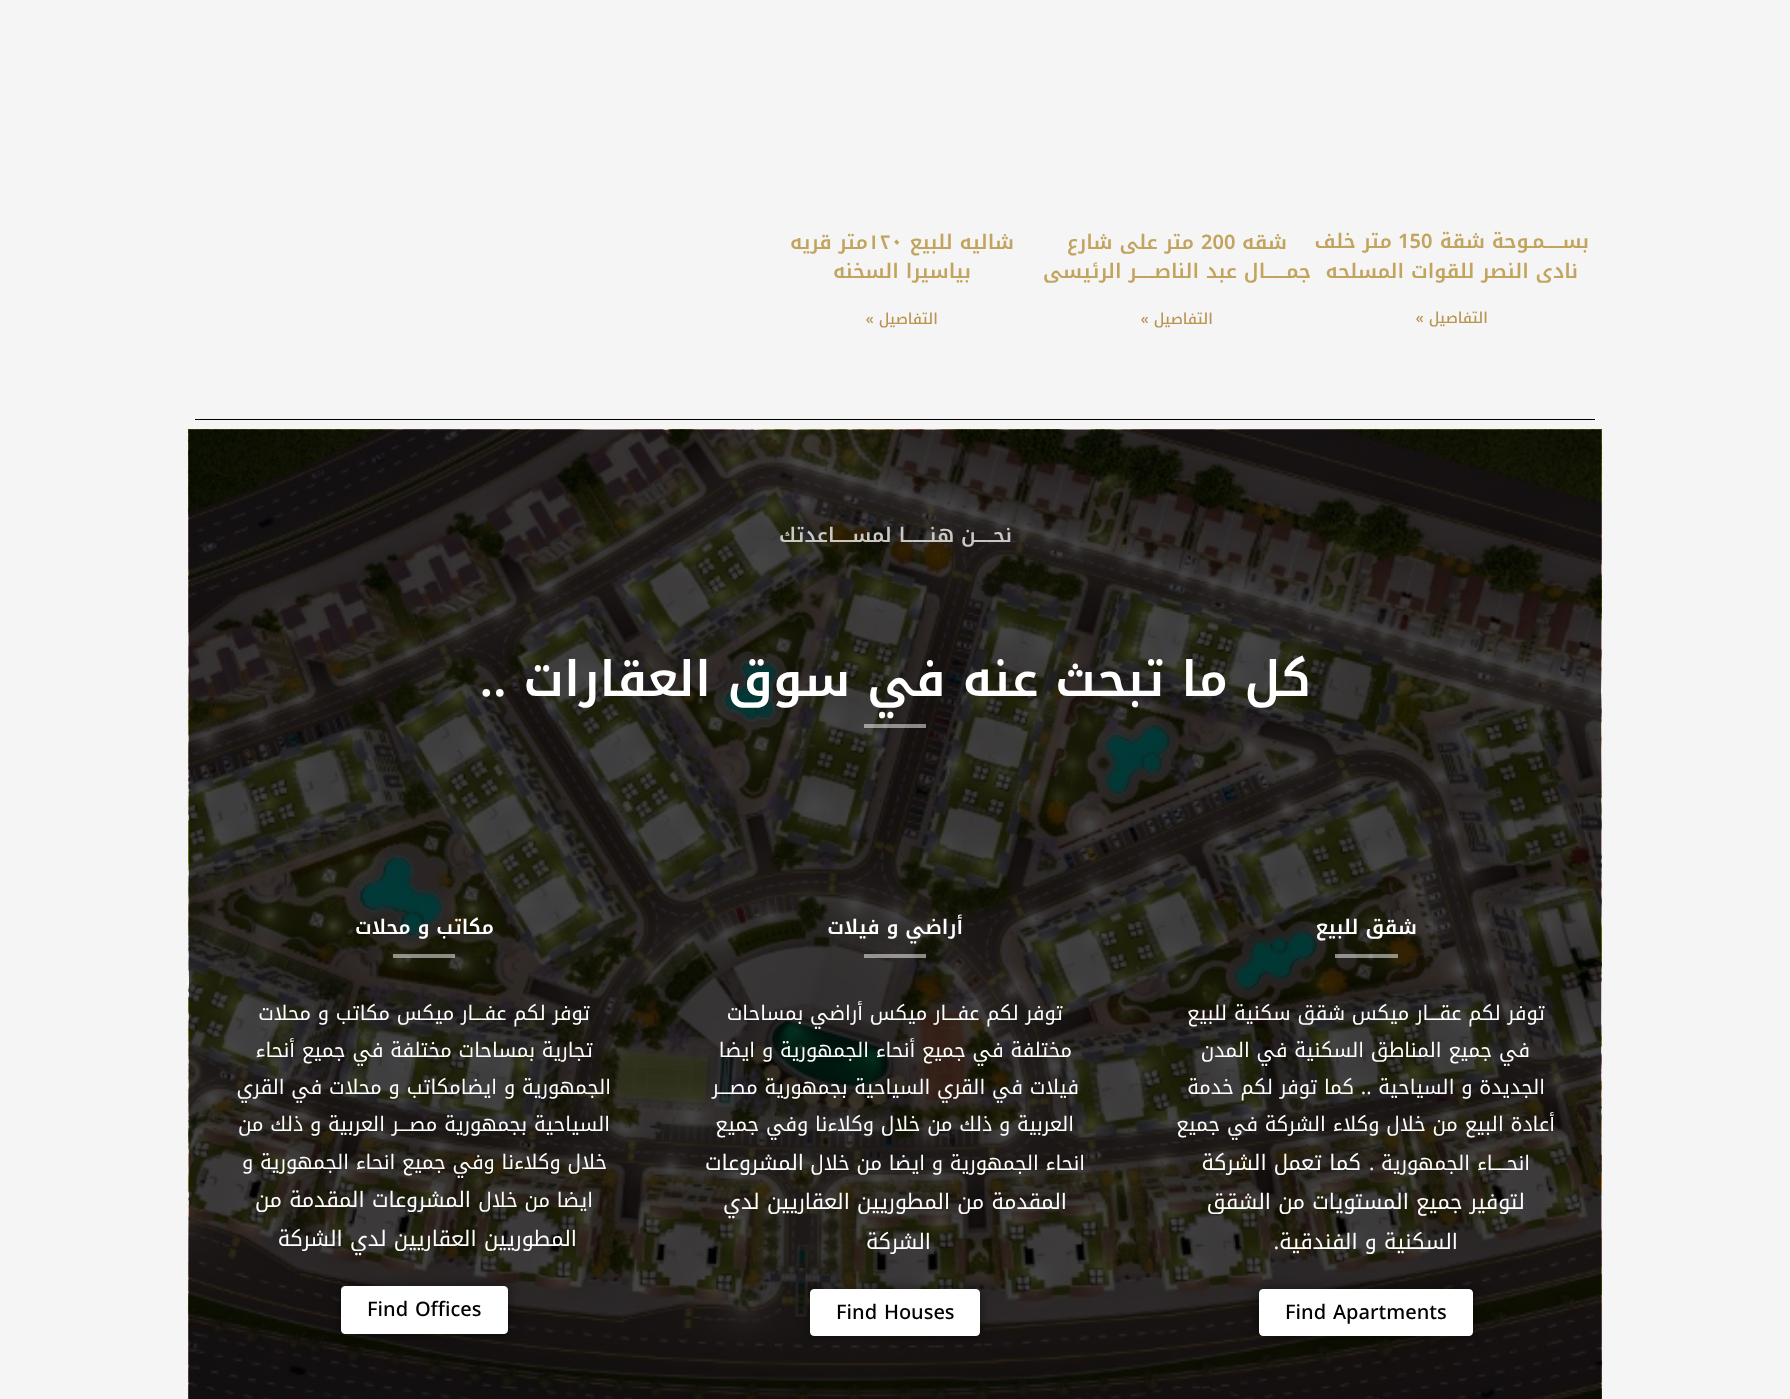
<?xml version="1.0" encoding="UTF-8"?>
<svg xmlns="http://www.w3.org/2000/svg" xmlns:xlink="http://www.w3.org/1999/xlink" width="1790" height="1399">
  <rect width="100%" height="100%" fill="#f5f5f5" />
  <rect x="195" y="419" width="1400" height="1" fill="#000000" />
  <image x="188" y="429" width="1414" height="970" xlink:href="image1.png" />
  <rect x="864" y="724" width="62" height="4" fill="#ffffff" fill-opacity="0.5" />
  <rect x="1335" y="954" width="63" height="4" fill="#ffffff" fill-opacity="0.5" />
  <rect x="1259" y="1289" width="214" height="47" rx="4" fill="#000000" fill-opacity="0.5" filter="blur(6px)" />
  <rect x="1259.5" y="1289.5" width="213" height="46" rx="3.5" fill="#ffffff" stroke="#ffffff" />
  <rect x="864" y="954" width="62" height="4" fill="#ffffff" fill-opacity="0.5" />
  <rect x="810" y="1289" width="170" height="47" rx="4" fill="#000000" fill-opacity="0.5" filter="blur(6px)" />
  <rect x="810.5" y="1289.5" width="169" height="46" rx="3.5" fill="#ffffff" stroke="#ffffff" />
  <rect x="393" y="954" width="62" height="4" fill="#ffffff" fill-opacity="0.5" />
  <rect x="341" y="1286" width="167" height="48" rx="4" fill="#000000" fill-opacity="0.5" filter="blur(6px)" />
  <rect x="341.5" y="1286.5" width="166" height="47" rx="3.5" fill="#ffffff" stroke="#ffffff" />
  <text x="1589" y="248" style="font-family: Noto Kufi Arabic; font-size: 20px; font-weight: 600; direction: rtl; fill: #c2a45f">بســـــمـوحة شقة</text>
  <text x="1398" y="248" style="font-family: Noto Kufi Arabic; font-size: 20px; font-weight: 600; fill: #c2a45f">150</text>
  <text x="1392" y="248" style="font-family: Noto Kufi Arabic; font-size: 20px; font-weight: 600; direction: rtl; fill: #c2a45f">متر خلف</text>
  <text x="1578" y="278" style="font-family: Noto Kufi Arabic; font-size: 20px; font-weight: 600; direction: rtl; fill: #c2a45f">نادى النصر للقوات المسلحه</text>
  <text x="1488" y="323" style="font-family: Noto Kufi Arabic; font-size: 15px; font-weight: 500; direction: rtl; fill: #b99453">التفاصيل »</text>
  <text x="1287" y="249" style="font-family: Noto Kufi Arabic; font-size: 20px; font-weight: 600; direction: rtl; fill: #c2a45f">شقه</text>
  <text x="1201" y="249" style="font-family: Noto Kufi Arabic; font-size: 20px; font-weight: 600; fill: #c2a45f">200</text>
  <text x="1194" y="249" style="font-family: Noto Kufi Arabic; font-size: 20px; font-weight: 600; direction: rtl; fill: #c2a45f">متر على شارع</text>
  <text x="1311" y="278" style="font-family: Noto Kufi Arabic; font-size: 20px; font-weight: 600; direction: rtl; fill: #c2a45f">جمــــــال عبد الناصـــــر الرئيسى</text>
  <text x="1213" y="324" style="font-family: Noto Kufi Arabic; font-size: 15px; font-weight: 500; direction: rtl; fill: #b99453">التفاصيل »</text>
  <text x="1014" y="249" style="font-family: Noto Kufi Arabic; font-size: 20px; font-weight: 600; direction: rtl; fill: #c2a45f">شاليه للبيع</text>
  <text x="868" y="249" style="font-family: Noto Kufi Arabic; font-size: 20px; font-weight: 600; fill: #c2a45f">١٢٠</text>
  <text x="868" y="249" style="font-family: Noto Kufi Arabic; font-size: 20px; font-weight: 600; direction: rtl; fill: #c2a45f">متر قريه</text>
  <text x="971" y="278" style="font-family: Noto Kufi Arabic; font-size: 20px; font-weight: 600; direction: rtl; fill: #c2a45f">بياسيرا السخنه</text>
  <text x="938" y="324" style="font-family: Noto Kufi Arabic; font-size: 15px; font-weight: 500; direction: rtl; fill: #b99453">التفاصيل »</text>
  <text x="1012" y="542" style="font-family: Noto Kufi Arabic; font-size: 20px; font-weight: 600; direction: rtl; fill: #c9c8c5">نحـــــن هنـــــــا لمســـــاعدتك</text>
  <text x="1311" y="696" style="font-family: Noto Kufi Arabic; font-size: 48.75px; font-weight: 600; direction: rtl; fill: #ffffff">كل ما تبحث عنه في سوق العقارات ..</text>
  <text x="1417" y="934" style="font-family: Noto Kufi Arabic; font-size: 20px; font-weight: 600; direction: rtl; fill: #ffffff">شقق للبيع</text>
  <text x="1545" y="1020" style="font-family: Noto Kufi Arabic; font-size: 20px; direction: rtl; fill: #ffffff">توفر لكم عقـــار ميكس شقق سكنية للبيع</text>
  <text x="1530" y="1057" style="font-family: Noto Kufi Arabic; font-size: 20px; direction: rtl; fill: #ffffff">في جميع المناطق السكنية في المدن</text>
  <text x="1545" y="1094" style="font-family: Noto Kufi Arabic; font-size: 20px; direction: rtl; fill: #ffffff">الجديدة و السياحية .. كما توفر لكم خدمة</text>
  <text x="1555" y="1131" style="font-family: Noto Kufi Arabic; font-size: 20px; direction: rtl; fill: #ffffff">أعادة البيع من خلال وكلاء الشركة في جميع</text>
  <text x="1530" y="1170" style="font-family: Noto Kufi Arabic; font-size: 20px; direction: rtl; fill: #ffffff">انحــــاء الجمهورية .</text>
  <text x="1361" y="1170" style="font-family: Noto Kufi Arabic; font-size: 21.25px; direction: rtl; fill: #ffffff">كما تعمل الشركة</text>
  <text x="1525" y="1209" style="font-family: Noto Kufi Arabic; font-size: 21.25px; direction: rtl; fill: #ffffff">لتوفير جميع المستويات من</text>
  <text x="1271" y="1209" style="font-family: Noto Kufi Arabic; font-size: 21.25px; direction: rtl; fill: #ffffff">الشقق</text>
  <text x="1458" y="1249" style="font-family: Noto Kufi Arabic; font-size: 21.25px; direction: rtl; fill: #ffffff">السكنية و الفندقية.</text>
  <text x="1285" y="1319" style="font-family: Noto Kufi Arabic; font-size: 20px; font-weight: 500; fill: #000000">Find Apartments</text>
  <text x="963" y="934" style="font-family: Noto Kufi Arabic; font-size: 20px; font-weight: 600; direction: rtl; fill: #ffffff">أراضي و فيلات</text>
  <text x="1063" y="1020" style="font-family: Noto Kufi Arabic; font-size: 20px; direction: rtl; fill: #ffffff">توفر لكم عفـــار ميكس أراضي بمساحات</text>
  <text x="1072" y="1057" style="font-family: Noto Kufi Arabic; font-size: 20px; direction: rtl; fill: #ffffff">مختلفة في جميع أنحاء الجمهورية و ايضا</text>
  <text x="1079" y="1094" style="font-family: Noto Kufi Arabic; font-size: 20px; direction: rtl; fill: #ffffff">فيلات في القري السياحية بجمهورية مصـــر</text>
  <text x="1074" y="1131" style="font-family: Noto Kufi Arabic; font-size: 20px; direction: rtl; fill: #ffffff">العربية و ذلك من خلال وكلاءنا وفي جميع</text>
  <text x="1085" y="1170" style="font-family: Noto Kufi Arabic; font-size: 20px; direction: rtl; fill: #ffffff">انحاء الجمهورية و ايضا من خلال</text>
  <text x="804" y="1170" style="font-family: Noto Kufi Arabic; font-size: 21.25px; direction: rtl; fill: #ffffff">المشروعات</text>
  <text x="1067" y="1209" style="font-family: Noto Kufi Arabic; font-size: 21.25px; direction: rtl; fill: #ffffff">المقدمة من المطوريين العقاريين لدي</text>
  <text x="931" y="1249" style="font-family: Noto Kufi Arabic; font-size: 21.25px; direction: rtl; fill: #ffffff">الشركة</text>
  <text x="836" y="1319" style="font-family: Noto Kufi Arabic; font-size: 20px; font-weight: 500; fill: #000000">Find Houses</text>
  <text x="494" y="934" style="font-family: Noto Kufi Arabic; font-size: 20px; font-weight: 600; direction: rtl; fill: #ffffff">مكاتب و محلات</text>
  <text x="590" y="1020" style="font-family: Noto Kufi Arabic; font-size: 20px; direction: rtl; fill: #ffffff">توفر لكم عفـــار ميكس مكاتب و محلات</text>
  <text x="593" y="1057" style="font-family: Noto Kufi Arabic; font-size: 20px; direction: rtl; fill: #ffffff">تجارية بمساحات مختلفة في جميع أنحاء</text>
  <text x="611" y="1094" style="font-family: Noto Kufi Arabic; font-size: 20px; direction: rtl; fill: #ffffff">الجمهورية و ايضامكاتب و محلات في القري</text>
  <text x="610" y="1131" style="font-family: Noto Kufi Arabic; font-size: 20px; direction: rtl; fill: #ffffff">السياحية بجمهورية مصـــر العربية و ذلك من</text>
  <text x="607" y="1169" style="font-family: Noto Kufi Arabic; font-size: 20px; direction: rtl; fill: #ffffff">خلال وكلاءنا وفي جميع انحاء الجمهورية و</text>
  <text x="593" y="1207" style="font-family: Noto Kufi Arabic; font-size: 20px; direction: rtl; fill: #ffffff">ايضا من خلال</text>
  <text x="471" y="1207" style="font-family: Noto Kufi Arabic; font-size: 21.25px; direction: rtl; fill: #ffffff">المشروعات المقدمة من</text>
  <text x="577" y="1246" style="font-family: Noto Kufi Arabic; font-size: 21.25px; direction: rtl; fill: #ffffff">المطوريين العقاريين لدي الشركة</text>
  <text x="367" y="1316" style="font-family: Noto Kufi Arabic; font-size: 20px; font-weight: 500; fill: #000000">Find Offices</text>
</svg>
